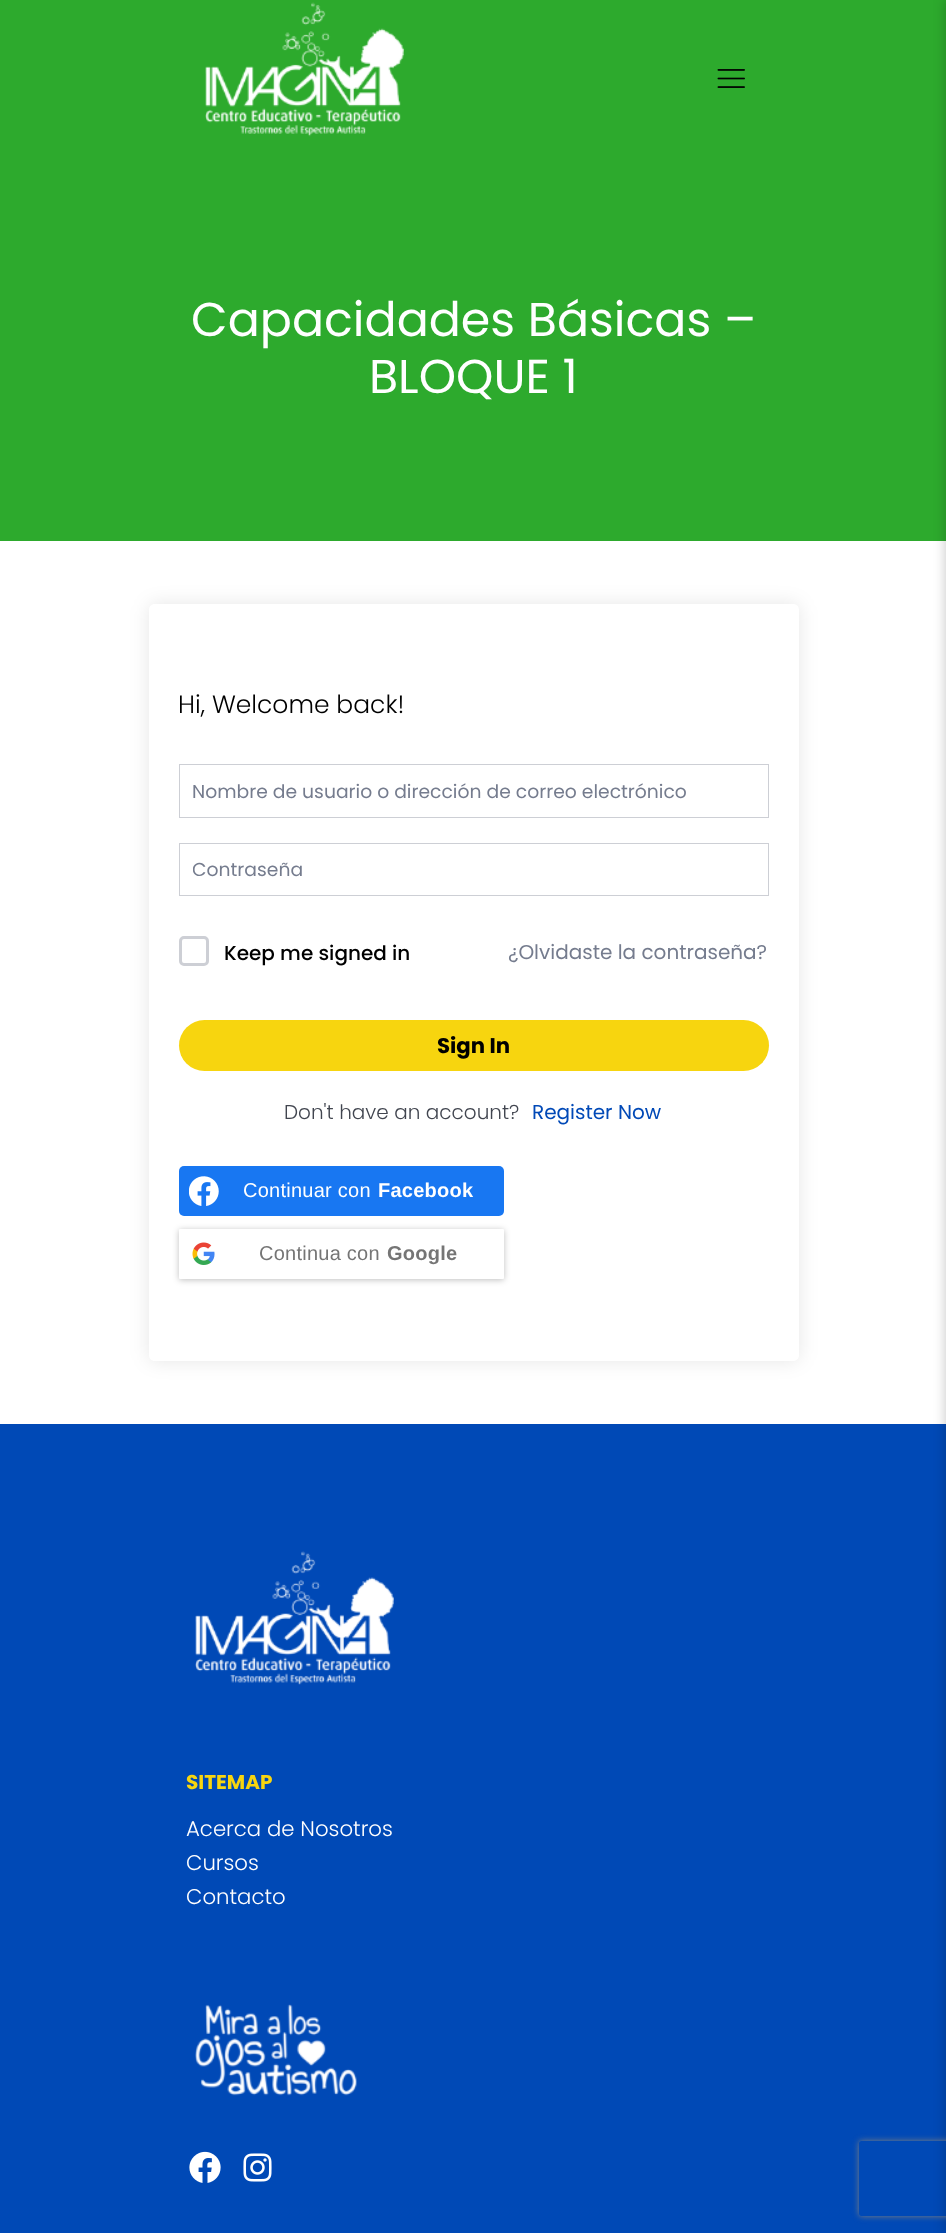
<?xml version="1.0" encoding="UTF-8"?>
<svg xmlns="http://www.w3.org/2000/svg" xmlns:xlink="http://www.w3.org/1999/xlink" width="946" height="2233">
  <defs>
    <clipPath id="clip1"><path d="M 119 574 h 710 v 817 h -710 z m 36 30 h 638 c 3.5 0 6 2.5 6 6 v 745 c 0 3.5 -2.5 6 -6 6 h -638 c -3.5 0 -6 -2.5 -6 -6 v -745 c 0 -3.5 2.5 -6 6 -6 z" clip-rule="evenodd" /></clipPath>
    <clipPath id="clip2"><path d="M 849 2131 h 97 v 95 h -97 z m 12.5 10 h 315 c 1.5 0 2.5 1 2.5 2.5 v 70 c 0 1.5 -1 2.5 -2.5 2.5 h -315 c -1.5 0 -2.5 -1 -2.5 -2.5 v -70 c 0 -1.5 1 -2.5 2.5 -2.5 z" clip-rule="evenodd" /></clipPath>
    <clipPath id="clip3"><rect x="193" y="855" width="562" height="29" /></clipPath>
  </defs>
  <rect width="100%" height="100%" fill="#ffffff" />
  <rect width="946" height="541" fill="#2daa2d" />
  <image x="205" y="2" width="200" height="135" xlink:href="image1.png" />
  <image x="717" y="69" width="28" height="19" xlink:href="image2.png" />
  <g clip-path="url(#clip1)">
    <rect x="149" y="604" width="650" height="757" rx="6" fill="#000000" fill-opacity="0.1" filter="blur(9.5px)" />
  </g>
  <rect x="179.5" y="764.5" width="589" height="53" fill="none" stroke="#cdcfd5" />
  <rect x="179.5" y="843.5" width="589" height="52" fill="none" stroke="#cdcfd5" />
  <rect x="180.5" y="937.5" width="27" height="27" rx="3.5" fill="none" stroke="#cdcfd5" stroke-width="3" />
  <rect x="179" y="1020" width="590" height="51" rx="25.5" fill="#f7d50f" />
  <rect x="179" y="1166" width="325" height="50" rx="5" fill="#1877f2" />
  <image x="189" y="1176" width="30" height="30" xlink:href="image3.png" />
  <rect x="179" y="1230" width="325" height="50" rx="1" fill="#000000" fill-opacity="0.25" filter="blur(3px)" />
  <rect x="179" y="1229" width="325" height="50" rx="1" fill="#ffffff" />
  <image x="192" y="1242" width="23" height="23" xlink:href="image4.png" />
  <rect y="1424" width="946" height="809" fill="#0049b6" />
  <image x="195" y="1551" width="199" height="134" xlink:href="image5.png" />
  <image x="195" y="2004" width="162" height="92" xlink:href="image6.png" />
  <image x="189" y="2151" width="32" height="32" xlink:href="image7.png" />
  <image x="243" y="2153" width="29" height="29" xlink:href="image8.png" />
  <rect x="945" y="-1" width="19" height="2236" fill="#000000" fill-opacity="0.2" filter="blur(6px)" />
  <g clip-path="url(#clip2)">
    <rect x="859" y="2141" width="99" height="75" rx="2.5" fill="#808080" filter="blur(3px)" />
  </g>
  <text x="191" y="336" style="font-family: Poppins; font-size: 47.5px; fill: #ffffff">Capacidades Básicas –</text>
  <text x="369" y="393" style="font-family: Poppins; font-size: 47.5px; fill: #ffffff">BLOQUE 1</text>
  <text x="178" y="713" style="font-family: Poppins; font-size: 25px; font-weight: 300; fill: #000000">Hi, Welcome back!</text>
  <text x="192" y="798" style="font-family: Poppins; font-size: 18.75px; fill: #757c8e">Nombre de usuario o dirección de correo electrónico</text>
  <g clip-path="url(#clip3)">
    <text x="192" y="876" style="font-family: Poppins; font-size: 18.75px; fill: #757c8e">Contraseña</text>
  </g>
  <text x="224" y="960" style="font-family: Poppins; font-size: 20px; font-weight: 500; fill: #000000">Keep me signed in</text>
  <text x="508" y="959" style="font-family: Poppins; font-size: 20px; fill: #757c8e">¿Olvidaste la contraseña?</text>
  <text x="437" y="1053" style="font-family: Poppins; font-size: 21.25px; font-weight: bold; fill: #000000">Sign In</text>
  <text x="284" y="1119" style="font-family: Poppins; font-size: 20px; font-weight: 300; fill: #41454f">Don't have an account?</text>
  <text x="532" y="1119" style="font-family: Poppins; font-size: 20px; fill: #0149b7">Register Now</text>
  <text x="243" y="1197" style="font-family: Liberation Sans; font-size: 20px; letter-spacing: 0.25px; fill: #ffffff">Continuar con</text>
  <text x="378" y="1197" style="font-family: Liberation Sans; font-size: 20px; font-weight: bold; letter-spacing: 0.25px; fill: #ffffff">Facebook</text>
  <text x="259" y="1260" style="font-family: Liberation Sans; font-size: 20px; letter-spacing: 0.25px; fill: #757575">Continua con</text>
  <text x="387" y="1260" style="font-family: Liberation Sans; font-size: 20px; font-weight: bold; letter-spacing: 0.25px; fill: #757575">Google</text>
  <text x="186" y="1789" style="font-family: Poppins; font-size: 20px; font-weight: bold; fill: #f7d50f">SITEMAP</text>
  <text x="186" y="1836" style="font-family: Poppins; font-size: 21.25px; font-weight: 300; fill: #ffffff">Acerca de Nosotros</text>
  <text x="186" y="1870" style="font-family: Poppins; font-size: 21.25px; font-weight: 300; fill: #ffffff">Cursos</text>
  <text x="186" y="1904" style="font-family: Poppins; font-size: 21.25px; font-weight: 300; fill: #ffffff">Contacto</text>
</svg>
